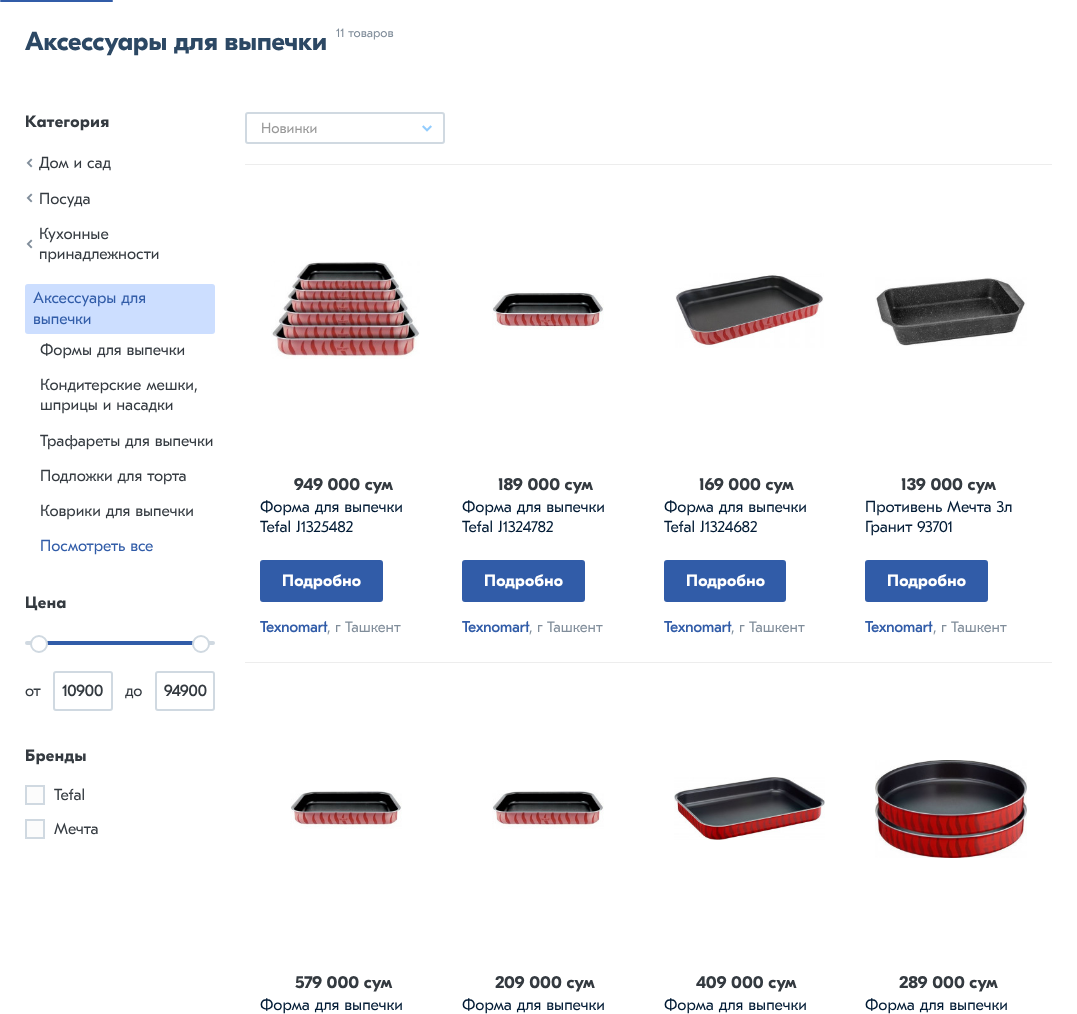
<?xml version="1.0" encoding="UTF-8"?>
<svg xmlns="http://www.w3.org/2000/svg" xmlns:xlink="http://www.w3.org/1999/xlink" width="1077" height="1014">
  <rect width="100%" height="100%" fill="#ffffff" />
  <rect width="113" height="2" rx="1" fill="#315ca8" />
  <image x="26" y="158" width="7" height="10" xlink:href="image1.png" />
  <image x="26" y="193" width="7" height="10" xlink:href="image1.png" />
  <image x="26" y="239" width="7" height="10" xlink:href="image1.png" />
  <rect x="25" y="284" width="190" height="50" rx="3" fill="#ccdeff" />
  <rect x="25" y="641" width="190" height="4" rx="2" fill="#d0d9e1" />
  <rect x="39" y="641" width="162" height="4" fill="#315ca8" />
  <circle cx="39" cy="644" r="8" fill="#ffffff" stroke="#d0d9e1" stroke-width="2" />
  <circle cx="201" cy="644" r="8" fill="#ffffff" stroke="#d0d9e1" stroke-width="2" />
  <rect x="54" y="672" width="58" height="38" rx="2" fill="none" stroke="#d0d9e1" stroke-width="2" />
  <rect x="156" y="672" width="58" height="38" rx="2" fill="none" stroke="#d0d9e1" stroke-width="2" />
  <rect x="26" y="786" width="18" height="18" fill="#fcfcfc" stroke="#d0d9e1" stroke-width="2" />
  <rect x="26" y="820" width="18" height="18" fill="#fcfcfc" stroke="#d0d9e1" stroke-width="2" />
  <rect x="246" y="113" width="198" height="30" rx="2" fill="none" stroke="#d0d9e1" stroke-width="2" />
  <image x="422" y="125" width="10" height="7" xlink:href="image2.png" />
  <rect x="245" y="164" width="807" height="1" fill="#ededed" />
  <image x="271" y="261" width="149" height="98" xlink:href="image3.png" />
  <rect x="261" y="561" width="121" height="40" rx="2" fill="#315ca8" stroke="#315ca8" stroke-width="2" />
  <image x="492" y="291" width="112" height="39" xlink:href="image4.png" />
  <rect x="463" y="561" width="121" height="40" rx="2" fill="#315ca8" stroke="#315ca8" stroke-width="2" />
  <image x="675" y="273" width="149" height="75" xlink:href="image5.png" />
  <rect x="665" y="561" width="120" height="40" rx="2" fill="#315ca8" stroke="#315ca8" stroke-width="2" />
  <image x="875" y="277" width="152" height="69" xlink:href="image6.png" />
  <rect x="866" y="561" width="121" height="40" rx="2" fill="#315ca8" stroke="#315ca8" stroke-width="2" />
  <rect x="245" y="662" width="807" height="1" fill="#ededed" />
  <image x="290" y="790" width="112" height="39" xlink:href="image7.png" />
  <image x="492" y="790" width="112" height="39" xlink:href="image8.png" />
  <image x="674" y="777" width="151" height="63" xlink:href="image9.png" />
  <image x="875" y="760" width="152" height="98" xlink:href="image10.png" />
  <text x="25" y="50" style="font-family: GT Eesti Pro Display; font-size: 26px; font-weight: bold; fill: #2c4864">Аксессуары для выпечки</text>
  <text x="336" y="37" style="font-family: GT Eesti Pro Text; font-size: 12.5px; fill: #808d9a">11 товаров</text>
  <text x="25" y="127" style="font-family: GT Eesti Pro Display; font-size: 16.5px; font-weight: bold; letter-spacing: 0.5px; fill: #343a40">Категория</text>
  <text x="39" y="168" style="font-family: GT Eesti Pro Text; font-size: 16px; fill: #343a40">Дом и сад</text>
  <text x="39" y="204" style="font-family: GT Eesti Pro Text; font-size: 16px; fill: #343a40">Посуда</text>
  <text x="39" y="239" style="font-family: GT Eesti Pro Text; font-size: 16px; fill: #343a40">Кухонные</text>
  <text x="39" y="259" style="font-family: GT Eesti Pro Text; font-size: 16px; fill: #343a40">принадлежности</text>
  <text x="33" y="303" style="font-family: GT Eesti Pro Text; font-size: 16px; fill: #315ca8">Аксессуары для</text>
  <text x="33" y="324" style="font-family: GT Eesti Pro Text; font-size: 16px; fill: #315ca8">выпечки</text>
  <text x="40" y="355" style="font-family: GT Eesti Pro Text; font-size: 16px; fill: #343a40">Формы для выпечки</text>
  <text x="40" y="390" style="font-family: GT Eesti Pro Text; font-size: 16px; fill: #343a40">Кондитерские мешки,</text>
  <text x="40" y="410" style="font-family: GT Eesti Pro Text; font-size: 16px; fill: #343a40">шприцы и насадки</text>
  <text x="40" y="446" style="font-family: GT Eesti Pro Text; font-size: 16px; fill: #343a40">Трафареты для выпечки</text>
  <text x="40" y="481" style="font-family: GT Eesti Pro Text; font-size: 16px; fill: #343a40">Подложки для торта</text>
  <text x="40" y="516" style="font-family: GT Eesti Pro Text; font-size: 16px; fill: #343a40">Коврики для выпечки</text>
  <text x="40" y="551" style="font-family: GT Eesti Pro Text; font-size: 16px; fill: #315ca8">Посмотреть все</text>
  <text x="25" y="608" style="font-family: GT Eesti Pro Display; font-size: 16.5px; font-weight: bold; letter-spacing: 0.5px; fill: #343a40">Цена</text>
  <text x="25" y="696" style="font-family: GT Eesti Pro Text; font-size: 16px; fill: #343a40">от</text>
  <text x="62" y="696" style="font-family: GT Eesti Pro Text; font-size: 16px; font-weight: bold; fill: #343a40">10900</text>
  <text x="125" y="696" style="font-family: GT Eesti Pro Text; font-size: 16px; fill: #343a40">до</text>
  <text x="164" y="696" style="font-family: GT Eesti Pro Text; font-size: 16px; font-weight: bold; fill: #343a40">94900</text>
  <text x="25" y="761" style="font-family: GT Eesti Pro Display; font-size: 16.5px; font-weight: bold; letter-spacing: 0.5px; fill: #343a40">Бренды</text>
  <text x="54" y="800" style="font-family: GT Eesti Pro Text; font-size: 16px; fill: #343a40">Tefal</text>
  <text x="54" y="834" style="font-family: GT Eesti Pro Text; font-size: 16px; fill: #343a40">Мечта</text>
  <text x="261" y="133" style="font-family: GT Eesti Pro Text; font-size: 14.5px; fill: #999999">Новинки</text>
  <text x="294" y="490" style="font-family: GT Eesti Pro Display; font-size: 17.5px; font-weight: bold; fill: #343a40">949 000 сум</text>
  <text x="260" y="512" style="font-family: GT Eesti Pro Text; font-size: 16px; fill: #001a34">Форма для выпечки</text>
  <text x="260" y="532" style="font-family: GT Eesti Pro Text; font-size: 16px; fill: #001a34">Tefal J1325482</text>
  <text x="282" y="586" style="font-family: GT Eesti Pro Display; font-size: 16.5px; font-weight: bold; letter-spacing: 0.25px; fill: #ffffff">Подробно</text>
  <text x="260" y="632" style="font-family: GT Eesti Pro Text; font-size: 15px; font-weight: bold; fill: #315ca8">Texnomart</text>
  <text x="327" y="632" style="font-family: GT Eesti Pro Text; font-size: 15px; fill: #808d9a">, г Ташкент</text>
  <text x="498" y="490" style="font-family: GT Eesti Pro Display; font-size: 17.5px; font-weight: bold; fill: #343a40">189 000 сум</text>
  <text x="462" y="512" style="font-family: GT Eesti Pro Text; font-size: 16px; fill: #001a34">Форма для выпечки</text>
  <text x="462" y="532" style="font-family: GT Eesti Pro Text; font-size: 16px; fill: #001a34">Tefal J1324782</text>
  <text x="484" y="586" style="font-family: GT Eesti Pro Display; font-size: 16.5px; font-weight: bold; letter-spacing: 0.25px; fill: #ffffff">Подробно</text>
  <text x="462" y="632" style="font-family: GT Eesti Pro Text; font-size: 15px; font-weight: bold; fill: #315ca8">Texnomart</text>
  <text x="529" y="632" style="font-family: GT Eesti Pro Text; font-size: 15px; fill: #808d9a">, г Ташкент</text>
  <text x="699" y="490" style="font-family: GT Eesti Pro Display; font-size: 17.5px; font-weight: bold; fill: #343a40">169 000 сум</text>
  <text x="664" y="512" style="font-family: GT Eesti Pro Text; font-size: 16px; fill: #001a34">Форма для выпечки</text>
  <text x="664" y="532" style="font-family: GT Eesti Pro Text; font-size: 16px; fill: #001a34">Tefal J1324682</text>
  <text x="686" y="586" style="font-family: GT Eesti Pro Display; font-size: 16.5px; font-weight: bold; letter-spacing: 0.25px; fill: #ffffff">Подробно</text>
  <text x="664" y="632" style="font-family: GT Eesti Pro Text; font-size: 15px; font-weight: bold; fill: #315ca8">Texnomart</text>
  <text x="731" y="632" style="font-family: GT Eesti Pro Text; font-size: 15px; fill: #808d9a">, г Ташкент</text>
  <text x="901" y="490" style="font-family: GT Eesti Pro Display; font-size: 17.5px; font-weight: bold; fill: #343a40">139 000 сум</text>
  <text x="865" y="512" style="font-family: GT Eesti Pro Text; font-size: 16px; fill: #001a34">Противень Мечта 3л</text>
  <text x="865" y="532" style="font-family: GT Eesti Pro Text; font-size: 16px; fill: #001a34">Гранит 93701</text>
  <text x="887" y="586" style="font-family: GT Eesti Pro Display; font-size: 16.5px; font-weight: bold; letter-spacing: 0.25px; fill: #ffffff">Подробно</text>
  <text x="865" y="632" style="font-family: GT Eesti Pro Text; font-size: 15px; font-weight: bold; fill: #315ca8">Texnomart</text>
  <text x="933" y="632" style="font-family: GT Eesti Pro Text; font-size: 15px; fill: #808d9a">, г Ташкент</text>
  <text x="295" y="988" style="font-family: GT Eesti Pro Display; font-size: 17.5px; font-weight: bold; fill: #343a40">579 000 сум</text>
  <text x="260" y="1010" style="font-family: GT Eesti Pro Text; font-size: 16px; fill: #001a34">Форма для выпечки</text>
  <text x="495" y="988" style="font-family: GT Eesti Pro Display; font-size: 17.5px; font-weight: bold; fill: #343a40">209 000 сум</text>
  <text x="462" y="1010" style="font-family: GT Eesti Pro Text; font-size: 16px; fill: #001a34">Форма для выпечки</text>
  <text x="696" y="988" style="font-family: GT Eesti Pro Display; font-size: 17.5px; font-weight: bold; fill: #343a40">409 000 сум</text>
  <text x="664" y="1010" style="font-family: GT Eesti Pro Text; font-size: 16px; fill: #001a34">Форма для выпечки</text>
  <text x="899" y="988" style="font-family: GT Eesti Pro Display; font-size: 17.5px; font-weight: bold; fill: #343a40">289 000 сум</text>
  <text x="865" y="1010" style="font-family: GT Eesti Pro Text; font-size: 16px; fill: #001a34">Форма для выпечки</text>
</svg>
